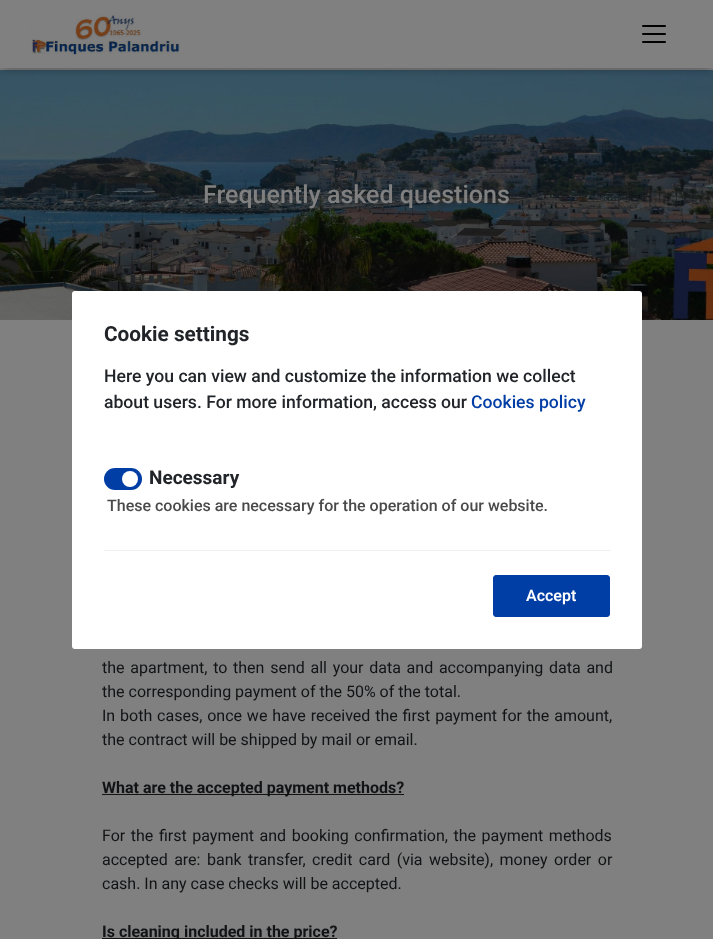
<?xml version="1.0" encoding="UTF-8"?>
<svg xmlns="http://www.w3.org/2000/svg" xmlns:xlink="http://www.w3.org/1999/xlink" width="713" height="939">
  <defs>
    <clipPath id="clip1"><rect x="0" y="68" width="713" height="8" /></clipPath>
  </defs>
  <rect width="100%" height="100%" fill="#808080" />
  <image x="0" y="70" width="713" height="250" xlink:href="image1.png" />
  <g clip-path="url(#clip1)">
    <rect x="2" y="4" width="709" height="64" fill="#000000" fill-opacity="0.41" filter="blur(5px)" />
  </g>
  <image x="31" y="15" width="149" height="40" xlink:href="image2.png" />
  <image x="642" y="25" width="24" height="18" xlink:href="image3.png" />
  <rect x="102" y="794" width="302" height="1" fill="#111315" />
  <rect x="102" y="938" width="235" height="1" fill="#111315" />
  <rect x="72" y="291" width="570" height="358" rx="3" fill="#ffffff" />
  <rect x="104" y="550" width="506" height="1" fill="#eeeeee" />
  <rect x="104" y="468" width="38" height="22" rx="11" fill="#003da5" />
  <circle cx="130" cy="479" r="8" fill="#ffffff" />
  <rect x="493.5" y="575.5" width="116" height="41" rx="2.5" fill="#003da5" stroke="#003da5" />
  <text x="203" y="203" style="font-family: Roboto; font-size: 25px; font-weight: 500; fill: #808080">Frequently asked questions</text>
  <text x="102" y="673" word-spacing="1.75" style="font-family: Roboto; font-size: 16px; fill: #111315">the apartment, to then send all your data and accompanying data and</text>
  <text x="102" y="697" style="font-family: Roboto; font-size: 16px; fill: #111315">the corresponding payment of the 50% of the total.</text>
  <text x="102" y="721" word-spacing="0.9" style="font-family: Roboto; font-size: 16px; fill: #111315">In both cases, once we have received the first payment for the amount,</text>
  <text x="102" y="745" style="font-family: Roboto; font-size: 16px; fill: #111315">the contract will be shipped by mail or email.</text>
  <text x="102" y="793" style="font-family: Roboto; font-size: 16px; font-weight: bold; fill: #111315">What are the accepted payment methods?</text>
  <text x="102" y="841" word-spacing="1.6" style="font-family: Roboto; font-size: 16px; fill: #111315">For the first payment and booking confirmation, the payment methods</text>
  <text x="102" y="865" word-spacing="2.5" style="font-family: Roboto; font-size: 16px; fill: #111315">accepted are: bank transfer, credit card (via website), money order or</text>
  <text x="102" y="889" style="font-family: Roboto; font-size: 16px; fill: #111315">cash. In any case checks will be accepted.</text>
  <text x="102" y="937" style="font-family: Roboto; font-size: 16px; font-weight: bold; fill: #111315">Is cleaning included in the price?</text>
  <text x="104" y="341" style="font-family: Roboto; font-size: 20.75px; font-weight: bold; fill: #212529">Cookie settings</text>
  <text x="104" y="382" style="font-family: Roboto; font-size: 17.6px; font-weight: 500; fill: #212529">Here you can view and customize the information we collect</text>
  <text x="104" y="408" style="font-family: Roboto; font-size: 17.6px; font-weight: 500; fill: #212529">about users. For more information, access our</text>
  <text x="471" y="408" style="font-family: Roboto; font-size: 17.6px; font-weight: 500; fill: #003da5">Cookies policy</text>
  <text x="149" y="484" style="font-family: Roboto; font-size: 19px; font-weight: bold; fill: #212529">Necessary</text>
  <text x="107" y="511" style="font-family: Roboto; font-size: 16px; font-weight: 500; fill: #4a4a4a">These cookies are necessary for the operation of our website.</text>
  <text x="526" y="601" style="font-family: Roboto; font-size: 16px; font-weight: 600; fill: #ffffff">Accept</text>
</svg>
